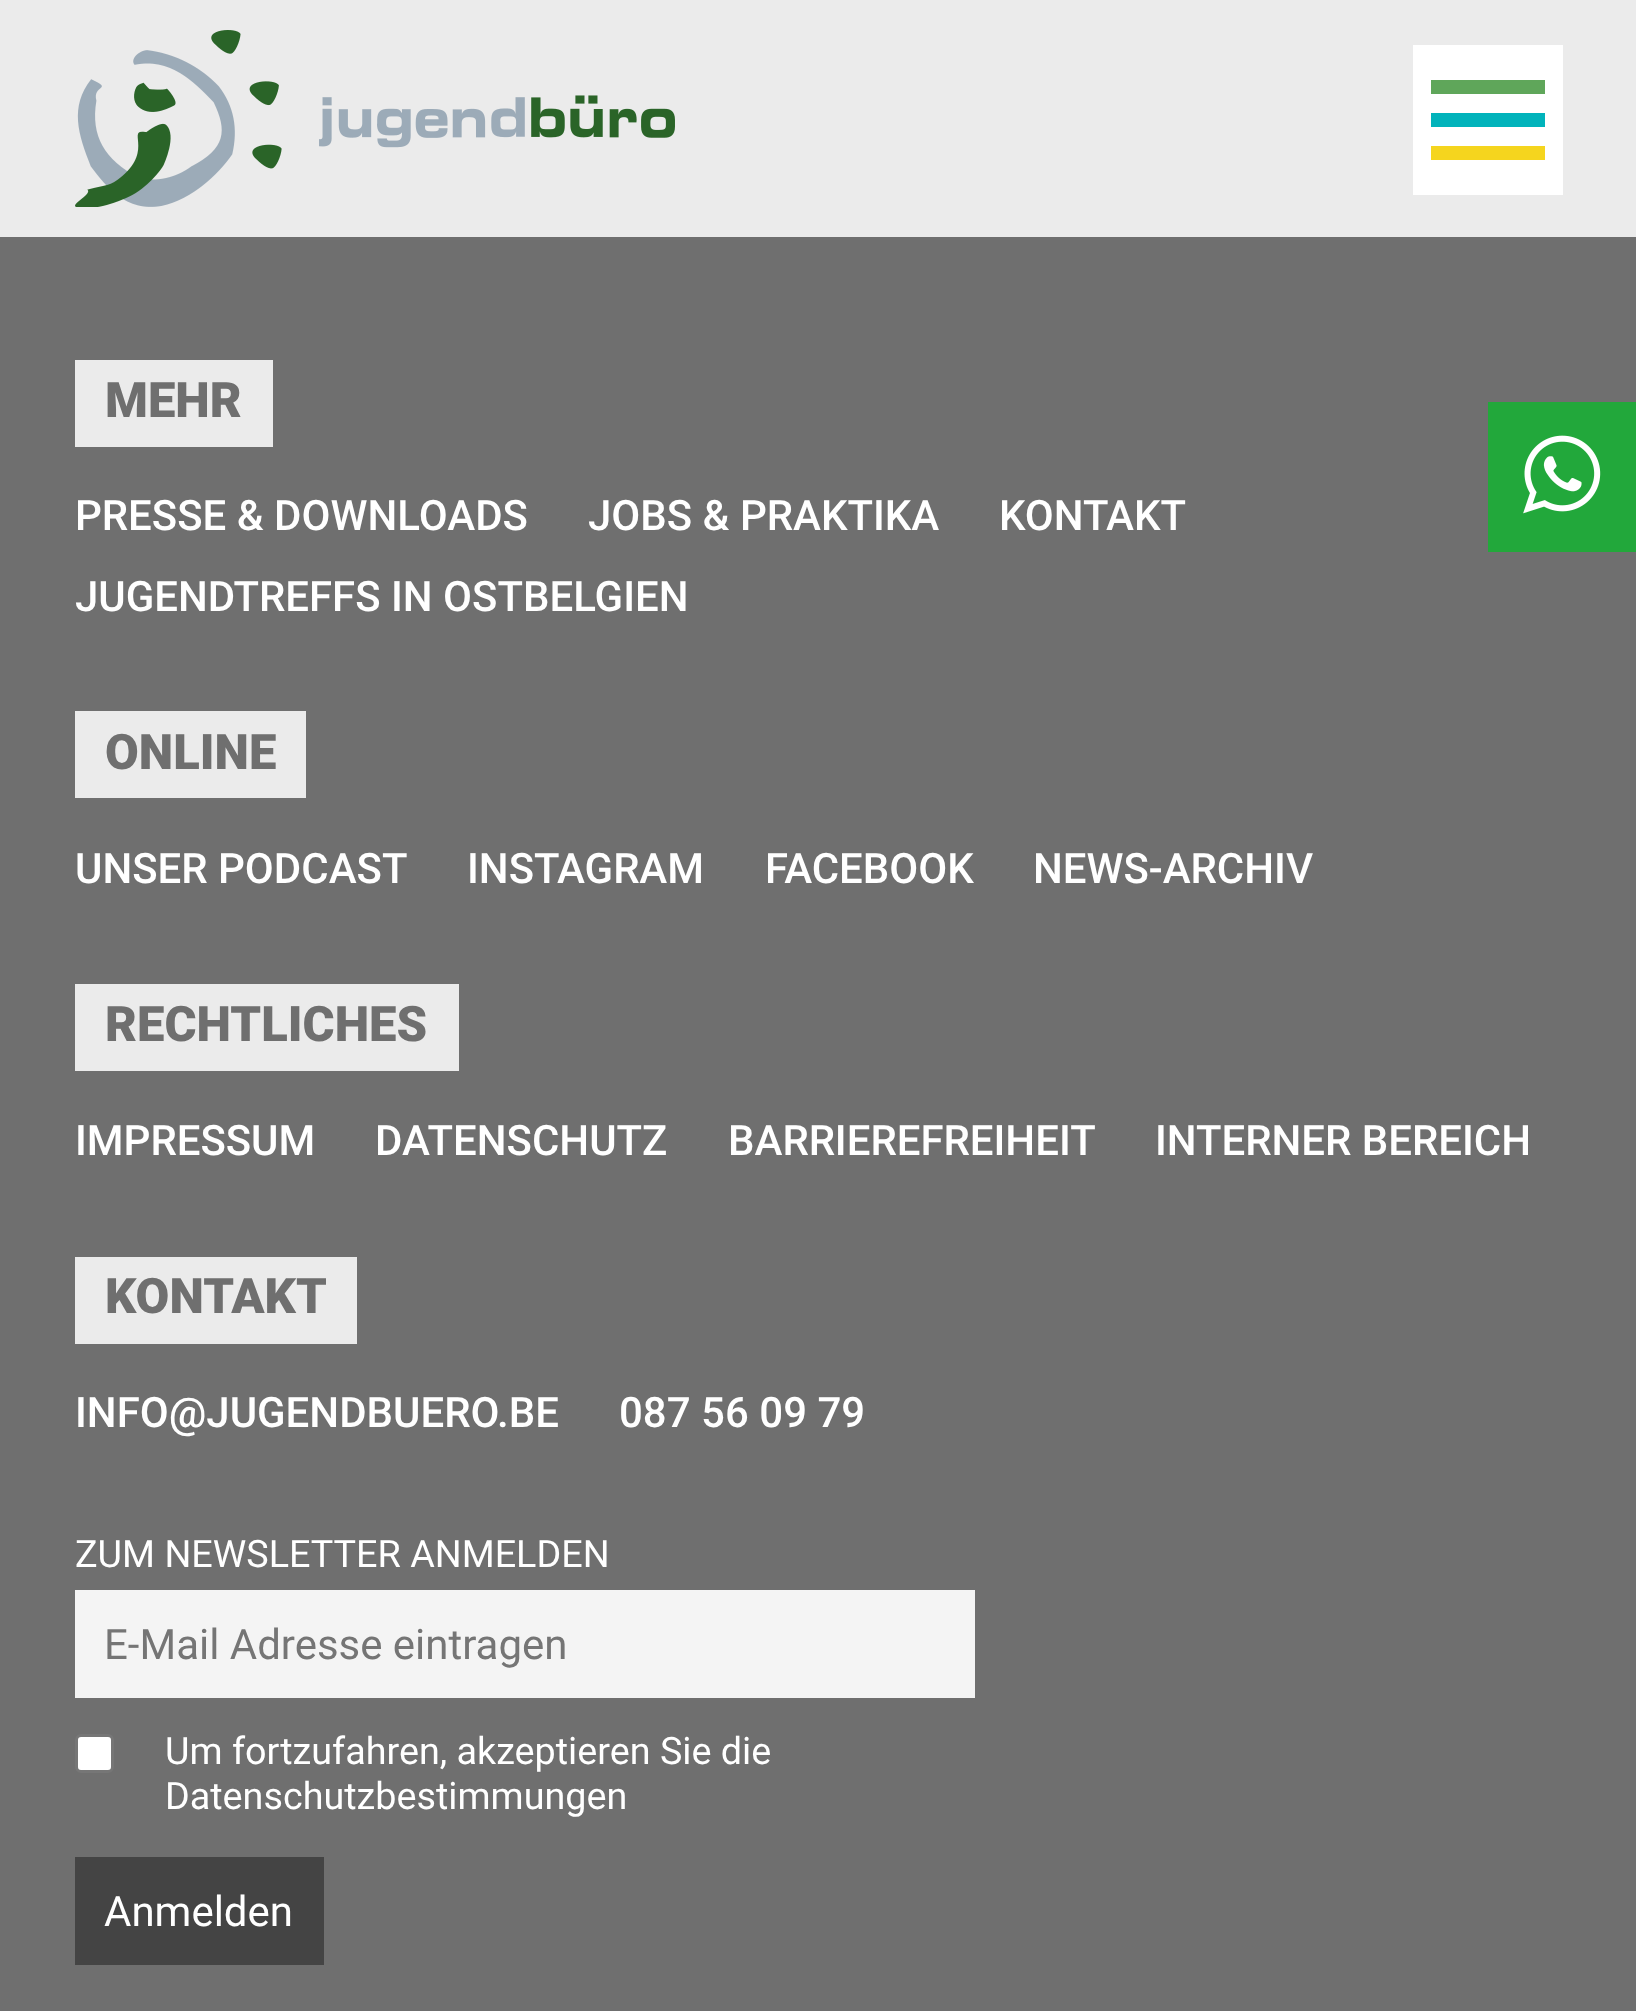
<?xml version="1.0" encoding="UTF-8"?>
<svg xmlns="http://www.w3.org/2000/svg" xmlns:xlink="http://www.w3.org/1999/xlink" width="1636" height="2011">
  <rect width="100%" height="100%" fill="#6f6f6f" />
  <rect width="1636" height="237" fill="#ebebeb" />
  <image x="75" y="30" width="600" height="177" xlink:href="image1.png" />
  <rect x="1413" y="45" width="150" height="150" fill="#ffffff" />
  <rect x="1431" y="80" width="114" height="14" fill="#5fa65a" />
  <rect x="1431" y="113" width="114" height="14" fill="#01b3bb" />
  <rect x="1431" y="146" width="114" height="14" fill="#f5d51e" />
  <rect x="75" y="360" width="198" height="87" fill="#ebebeb" />
  <rect x="75" y="711" width="231" height="87" fill="#ebebeb" />
  <rect x="75" y="984" width="384" height="87" fill="#ebebeb" />
  <rect x="75" y="1257" width="282" height="87" fill="#ebebeb" />
  <image x="1488" y="402" width="148" height="150" xlink:href="image2.png" />
  <rect x="75" y="1590" width="900" height="108" fill="#f4f4f4" />
  <rect x="76.5" y="1735.5" width="36" height="36" rx="4.5" fill="#ffffff" stroke="#767676" stroke-width="3" />
  <rect x="75" y="1857" width="249" height="108" fill="#444444" />
  <text x="105" y="417" style="font-family: Roboto; font-size: 49px; font-weight: 900; fill: #6f6f6f">MEHR</text>
  <text x="75" y="530" style="font-family: Roboto; font-size: 42px; font-weight: 500; fill: #ffffff">PRESSE &amp; DOWNLOADS</text>
  <text x="588" y="530" style="font-family: Roboto; font-size: 42px; font-weight: 500; fill: #ffffff">JOBS &amp; PRAKTIKA</text>
  <text x="999" y="530" style="font-family: Roboto; font-size: 42px; font-weight: 500; fill: #ffffff">KONTAKT</text>
  <text x="75" y="611" style="font-family: Roboto; font-size: 42px; font-weight: 500; fill: #ffffff">JUGENDTREFFS IN OSTBELGIEN</text>
  <text x="105" y="769" style="font-family: Roboto; font-size: 49px; font-weight: 900; fill: #6f6f6f">ONLINE</text>
  <text x="75" y="883" style="font-family: Roboto; font-size: 42px; font-weight: 500; fill: #ffffff">UNSER PODCAST</text>
  <text x="467" y="883" style="font-family: Roboto; font-size: 42px; font-weight: 500; fill: #ffffff">INSTAGRAM</text>
  <text x="765" y="883" style="font-family: Roboto; font-size: 42px; font-weight: 500; fill: #ffffff">FACEBOOK</text>
  <text x="1033" y="883" style="font-family: Roboto; font-size: 42px; font-weight: 500; fill: #ffffff">NEWS-ARCHIV</text>
  <text x="105" y="1041" style="font-family: Roboto; font-size: 49px; font-weight: 900; fill: #6f6f6f">RECHTLICHES</text>
  <text x="75" y="1155" style="font-family: Roboto; font-size: 42px; font-weight: 500; fill: #ffffff">IMPRESSUM</text>
  <text x="375" y="1155" style="font-family: Roboto; font-size: 42px; font-weight: 500; fill: #ffffff">DATENSCHUTZ</text>
  <text x="728" y="1155" style="font-family: Roboto; font-size: 42px; font-weight: 500; fill: #ffffff">BARRIEREFREIHEIT</text>
  <text x="1155" y="1155" style="font-family: Roboto; font-size: 42px; font-weight: 500; fill: #ffffff">INTERNER BEREICH</text>
  <text x="105" y="1313" style="font-family: Roboto; font-size: 49px; font-weight: 900; fill: #6f6f6f">KONTAKT</text>
  <text x="75" y="1427" style="font-family: Roboto; font-size: 42px; font-weight: 500; fill: #ffffff">INFO@JUGENDBUERO.BE</text>
  <text x="619" y="1427" style="font-family: Roboto; font-size: 42px; font-weight: 500; fill: #ffffff">087 56 09 79</text>
  <text x="75" y="1567" style="font-family: Roboto; font-size: 37.75px; fill: #ffffff">ZUM NEWSLETTER ANMELDEN</text>
  <text x="104" y="1659" style="font-family: Roboto; font-size: 42px; fill: #757575">E-Mail Adresse eintragen</text>
  <text x="165" y="1764" style="font-family: Roboto; font-size: 37.75px; fill: #ffffff">Um fortzufahren, akzeptieren Sie die</text>
  <text x="165" y="1809" style="font-family: Roboto; font-size: 37.75px; fill: #ffffff">Datenschutzbestimmungen</text>
  <text x="104" y="1926" style="font-family: Roboto; font-size: 42px; fill: #ffffff">Anmelden</text>
</svg>
